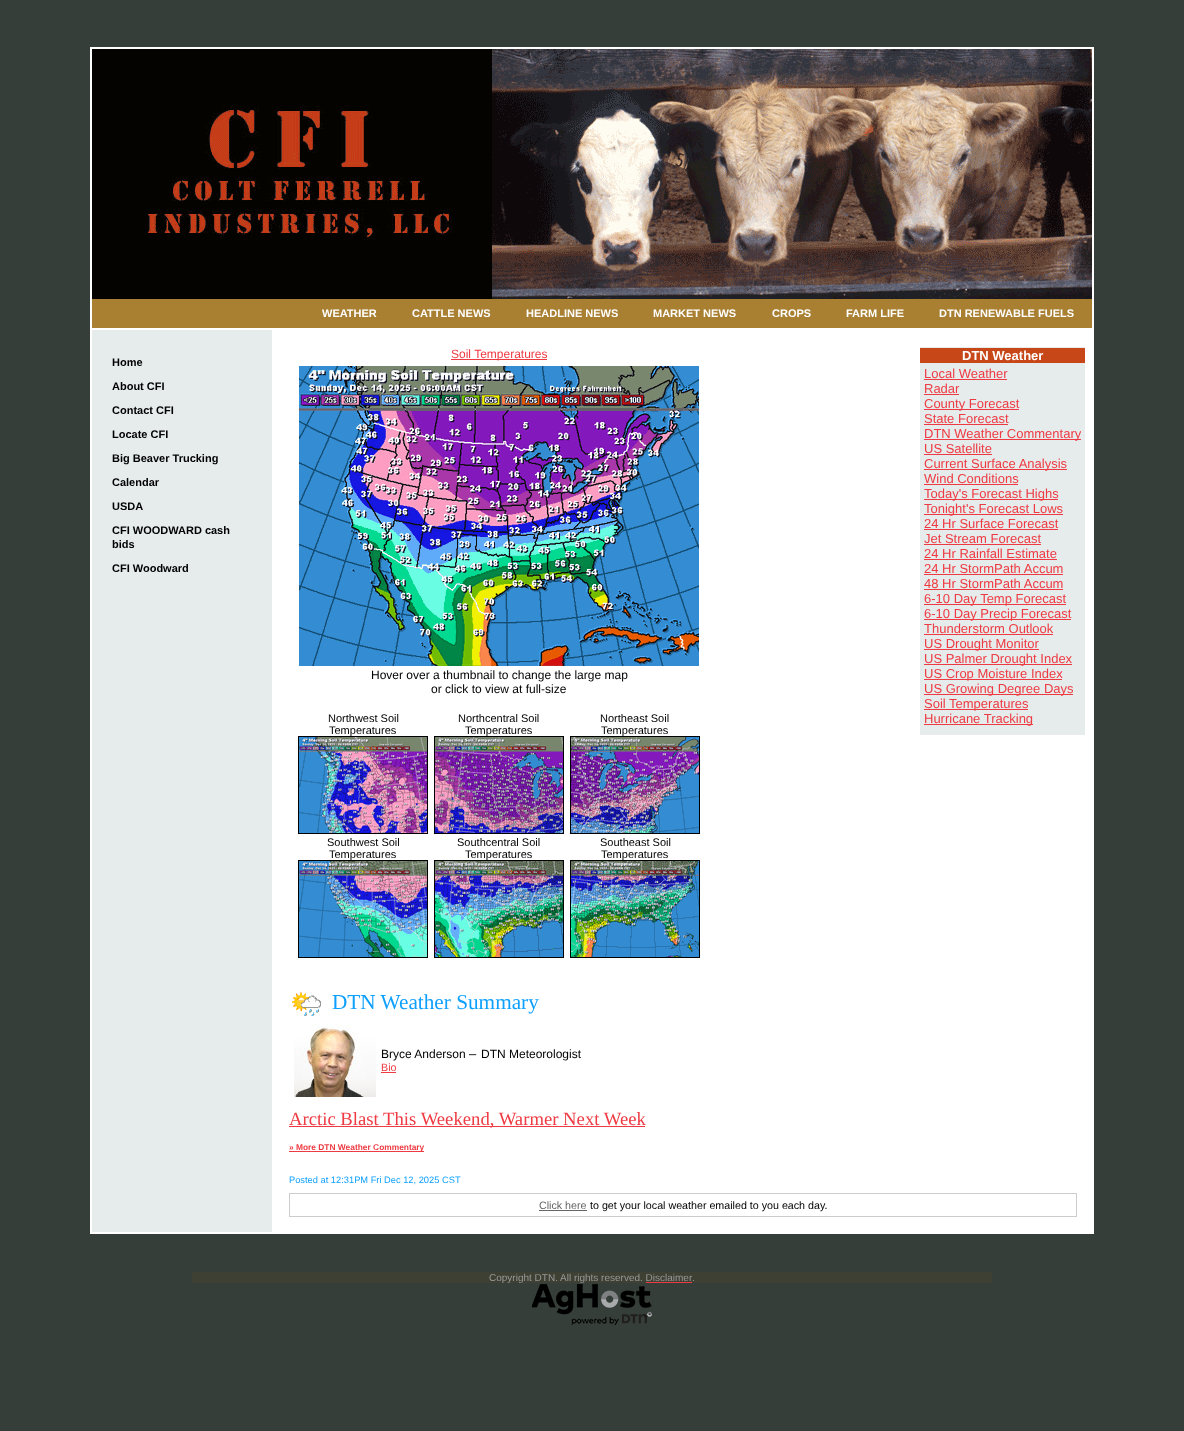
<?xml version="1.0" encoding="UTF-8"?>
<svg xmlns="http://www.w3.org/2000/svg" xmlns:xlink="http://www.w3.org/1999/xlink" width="1184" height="1431">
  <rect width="100%" height="100%" fill="#353e39" />
  <rect x="90" y="47" width="1004" height="1187" fill="#ffffff" />
  <image x="92" y="49" width="1000" height="250" xlink:href="image1.png" />
  <rect x="92" y="299" width="1000" height="29" fill="#a97f31" />
  <rect x="92" y="330" width="180" height="902" fill="#e6ecec" />
  <rect x="451" y="359" width="96" height="1" fill="#ee3a42" />
  <image x="299" y="366" width="400" height="300" xlink:href="image2.png" />
  <rect x="298.5" y="736.5" width="129" height="97" fill="none" stroke="#000000" />
  <image x="299" y="737" width="128" height="96" xlink:href="image3.png" />
  <rect x="434.5" y="736.5" width="129" height="97" fill="none" stroke="#000000" />
  <image x="435" y="737" width="128" height="96" xlink:href="image4.png" />
  <rect x="570.5" y="736.5" width="129" height="97" fill="none" stroke="#000000" />
  <image x="571" y="737" width="128" height="96" xlink:href="image5.png" />
  <rect x="298.5" y="860.5" width="129" height="97" fill="none" stroke="#000000" />
  <image x="299" y="861" width="128" height="96" xlink:href="image6.png" />
  <rect x="434.5" y="860.5" width="129" height="97" fill="none" stroke="#000000" />
  <image x="435" y="861" width="128" height="96" xlink:href="image7.png" />
  <rect x="570.5" y="860.5" width="129" height="97" fill="none" stroke="#000000" />
  <image x="571" y="861" width="128" height="96" xlink:href="image8.png" />
  <rect x="920" y="347" width="165" height="388" fill="#e6ecec" />
  <rect x="920" y="348" width="165" height="15" fill="#c74719" />
  <rect x="924" y="379" width="83" height="1" fill="#ee3a42" />
  <rect x="924" y="394" width="35" height="1" fill="#ee3a42" />
  <rect x="924" y="409" width="95" height="1" fill="#ee3a42" />
  <rect x="924" y="424" width="84" height="1" fill="#ee3a42" />
  <rect x="924" y="439" width="157" height="1" fill="#ee3a42" />
  <rect x="924" y="454" width="68" height="1" fill="#ee3a42" />
  <rect x="924" y="469" width="143" height="1" fill="#ee3a42" />
  <rect x="924" y="484" width="94" height="1" fill="#ee3a42" />
  <rect x="924" y="499" width="134" height="1" fill="#ee3a42" />
  <rect x="924" y="514" width="139" height="1" fill="#ee3a42" />
  <rect x="924" y="529" width="134" height="1" fill="#ee3a42" />
  <rect x="924" y="544" width="117" height="1" fill="#ee3a42" />
  <rect x="924" y="559" width="133" height="1" fill="#ee3a42" />
  <rect x="924" y="574" width="139" height="1" fill="#ee3a42" />
  <rect x="924" y="589" width="139" height="1" fill="#ee3a42" />
  <rect x="924" y="604" width="142" height="1" fill="#ee3a42" />
  <rect x="924" y="619" width="147" height="1" fill="#ee3a42" />
  <rect x="924" y="634" width="129" height="1" fill="#ee3a42" />
  <rect x="924" y="649" width="115" height="1" fill="#ee3a42" />
  <rect x="924" y="664" width="148" height="1" fill="#ee3a42" />
  <rect x="924" y="679" width="138" height="1" fill="#ee3a42" />
  <rect x="924" y="694" width="149" height="1" fill="#ee3a42" />
  <rect x="924" y="709" width="104" height="1" fill="#ee3a42" />
  <rect x="924" y="724" width="109" height="1" fill="#ee3a42" />
  <image x="292" y="992" width="29" height="24" xlink:href="image9.png" />
  <image x="294" y="1024" width="82" height="73" xlink:href="image10.png" />
  <rect x="381" y="1072" width="15" height="1" fill="#ee3a42" />
  <rect x="289" y="1126" width="356" height="1" fill="#ee3a42" />
  <rect x="289" y="1151" width="135" height="1" fill="#ee3a42" />
  <rect x="289.5" y="1193.5" width="787" height="23" fill="none" stroke="#cccccc" />
  <rect x="539" y="1210" width="48" height="1" fill="#666666" />
  <rect x="192" y="1272" width="800" height="11" fill="#3e4033" />
  <image x="532" y="1284" width="120" height="41" xlink:href="image11.png" />
  <text x="322" y="317" style="font-family: Liberation Sans; font-size: 11px; font-weight: bold; fill: #ffffff">WEATHER</text>
  <text x="412" y="317" style="font-family: Liberation Sans; font-size: 11px; font-weight: bold; fill: #ffffff">CATTLE NEWS</text>
  <text x="526" y="317" style="font-family: Liberation Sans; font-size: 11px; font-weight: bold; fill: #ffffff">HEADLINE NEWS</text>
  <text x="653" y="317" style="font-family: Liberation Sans; font-size: 11px; font-weight: bold; fill: #ffffff">MARKET NEWS</text>
  <text x="772" y="317" style="font-family: Liberation Sans; font-size: 11px; font-weight: bold; fill: #ffffff">CROPS</text>
  <text x="846" y="317" style="font-family: Liberation Sans; font-size: 11px; font-weight: bold; fill: #ffffff">FARM LIFE</text>
  <text x="939" y="317" style="font-family: Liberation Sans; font-size: 11px; font-weight: bold; fill: #ffffff">DTN RENEWABLE FUELS</text>
  <text x="112" y="366" style="font-family: Liberation Sans; font-size: 11px; font-weight: bold; fill: #000000">Home</text>
  <text x="112" y="390" style="font-family: Liberation Sans; font-size: 11px; font-weight: bold; fill: #000000">About CFI</text>
  <text x="112" y="414" style="font-family: Liberation Sans; font-size: 11px; font-weight: bold; fill: #000000">Contact CFI</text>
  <text x="112" y="438" style="font-family: Liberation Sans; font-size: 11px; font-weight: bold; fill: #000000">Locate CFI</text>
  <text x="112" y="462" style="font-family: Liberation Sans; font-size: 11px; font-weight: bold; fill: #000000">Big Beaver Trucking</text>
  <text x="112" y="486" style="font-family: Liberation Sans; font-size: 11px; font-weight: bold; fill: #000000">Calendar</text>
  <text x="112" y="510" style="font-family: Liberation Sans; font-size: 11px; font-weight: bold; fill: #000000">USDA</text>
  <text x="112" y="534" style="font-family: Liberation Sans; font-size: 11px; font-weight: bold; fill: #000000">CFI WOODWARD cash</text>
  <text x="112" y="548" style="font-family: Liberation Sans; font-size: 11px; font-weight: bold; fill: #000000">bids</text>
  <text x="112" y="572" style="font-family: Liberation Sans; font-size: 11px; font-weight: bold; fill: #000000">CFI Woodward</text>
  <text x="451" y="358" style="font-family: Liberation Sans; font-size: 12px; fill: #ee3a42">Soil Temperatures</text>
  <text x="371" y="679" style="font-family: Liberation Sans; font-size: 12px; fill: #000000">Hover over a thumbnail to change the large map</text>
  <text x="431" y="693" style="font-family: Liberation Sans; font-size: 12px; fill: #000000">or click to view at full-size</text>
  <text x="328" y="722" style="font-family: Liberation Sans; font-size: 11px; fill: #000000">Northwest Soil</text>
  <text x="329" y="734" style="font-family: Liberation Sans; font-size: 11px; fill: #000000">Temperatures</text>
  <text x="458" y="722" style="font-family: Liberation Sans; font-size: 11px; fill: #000000">Northcentral Soil</text>
  <text x="465" y="734" style="font-family: Liberation Sans; font-size: 11px; fill: #000000">Temperatures</text>
  <text x="600" y="722" style="font-family: Liberation Sans; font-size: 11px; fill: #000000">Northeast Soil</text>
  <text x="601" y="734" style="font-family: Liberation Sans; font-size: 11px; fill: #000000">Temperatures</text>
  <text x="327" y="846" style="font-family: Liberation Sans; font-size: 11px; fill: #000000">Southwest Soil</text>
  <text x="329" y="858" style="font-family: Liberation Sans; font-size: 11px; fill: #000000">Temperatures</text>
  <text x="457" y="846" style="font-family: Liberation Sans; font-size: 11px; fill: #000000">Southcentral Soil</text>
  <text x="465" y="858" style="font-family: Liberation Sans; font-size: 11px; fill: #000000">Temperatures</text>
  <text x="600" y="846" style="font-family: Liberation Sans; font-size: 11px; fill: #000000">Southeast Soil</text>
  <text x="601" y="858" style="font-family: Liberation Sans; font-size: 11px; fill: #000000">Temperatures</text>
  <text x="962" y="360" style="font-family: Liberation Sans; font-size: 13px; font-weight: bold; fill: #ffffff">DTN Weather</text>
  <text x="924" y="378" style="font-family: Liberation Sans; font-size: 13px; fill: #ee3a42">Local Weather</text>
  <text x="924" y="393" style="font-family: Liberation Sans; font-size: 13px; fill: #ee3a42">Radar</text>
  <text x="924" y="408" style="font-family: Liberation Sans; font-size: 13px; fill: #ee3a42">County Forecast</text>
  <text x="924" y="423" style="font-family: Liberation Sans; font-size: 13px; fill: #ee3a42">State Forecast</text>
  <text x="924" y="438" style="font-family: Liberation Sans; font-size: 13px; fill: #ee3a42">DTN Weather Commentary</text>
  <text x="924" y="453" style="font-family: Liberation Sans; font-size: 13px; fill: #ee3a42">US Satellite</text>
  <text x="924" y="468" style="font-family: Liberation Sans; font-size: 13px; fill: #ee3a42">Current Surface Analysis</text>
  <text x="924" y="483" style="font-family: Liberation Sans; font-size: 13px; fill: #ee3a42">Wind Conditions</text>
  <text x="924" y="498" style="font-family: Liberation Sans; font-size: 13px; fill: #ee3a42">Today's Forecast Highs</text>
  <text x="924" y="513" style="font-family: Liberation Sans; font-size: 13px; fill: #ee3a42">Tonight's Forecast Lows</text>
  <text x="924" y="528" style="font-family: Liberation Sans; font-size: 13px; fill: #ee3a42">24 Hr Surface Forecast</text>
  <text x="924" y="543" style="font-family: Liberation Sans; font-size: 13px; fill: #ee3a42">Jet Stream Forecast</text>
  <text x="924" y="558" style="font-family: Liberation Sans; font-size: 13px; fill: #ee3a42">24 Hr Rainfall Estimate</text>
  <text x="924" y="573" style="font-family: Liberation Sans; font-size: 13px; fill: #ee3a42">24 Hr StormPath Accum</text>
  <text x="924" y="588" style="font-family: Liberation Sans; font-size: 13px; fill: #ee3a42">48 Hr StormPath Accum</text>
  <text x="924" y="603" style="font-family: Liberation Sans; font-size: 13px; fill: #ee3a42">6-10 Day Temp Forecast</text>
  <text x="924" y="618" style="font-family: Liberation Sans; font-size: 13px; fill: #ee3a42">6-10 Day Precip Forecast</text>
  <text x="924" y="633" style="font-family: Liberation Sans; font-size: 13px; fill: #ee3a42">Thunderstorm Outlook</text>
  <text x="924" y="648" style="font-family: Liberation Sans; font-size: 13px; fill: #ee3a42">US Drought Monitor</text>
  <text x="924" y="663" style="font-family: Liberation Sans; font-size: 13px; fill: #ee3a42">US Palmer Drought Index</text>
  <text x="924" y="678" style="font-family: Liberation Sans; font-size: 13px; fill: #ee3a42">US Crop Moisture Index</text>
  <text x="924" y="693" style="font-family: Liberation Sans; font-size: 13px; fill: #ee3a42">US Growing Degree Days</text>
  <text x="924" y="708" style="font-family: Liberation Sans; font-size: 13px; fill: #ee3a42">Soil Temperatures</text>
  <text x="924" y="723" style="font-family: Liberation Sans; font-size: 13px; fill: #ee3a42">Hurricane Tracking</text>
  <text x="332" y="1009" style="font-family: Liberation Serif; font-size: 21.25px; fill: #0ea0fd">DTN Weather Summary</text>
  <text x="381" y="1058" style="font-family: Liberation Sans; font-size: 12px; fill: #000000">Bryce Anderson</text>
  <text x="469" y="1058" style="font-family: Liberation Sans; font-size: 13px; fill: #000000">–</text>
  <text x="481" y="1058" style="font-family: Liberation Sans; font-size: 12px; fill: #000000">DTN Meteorologist</text>
  <text x="381" y="1071" style="font-family: Liberation Sans; font-size: 10.7px; fill: #ee3a42">Bio</text>
  <text x="289" y="1125" style="font-family: Liberation Serif; font-size: 18.7px; fill: #ee3a42">Arctic Blast This Weekend, Warmer Next Week</text>
  <text x="289" y="1150" style="font-family: Liberation Sans; font-size: 8.4px; font-weight: bold; fill: #ee3a42">» More DTN Weather Commentary</text>
  <text x="289" y="1183" style="font-family: Liberation Sans; font-size: 9.3px; fill: #0ea0fd">Posted at 12:31PM Fri Dec 12, 2025 CST</text>
  <text x="539" y="1209" style="font-family: Liberation Sans; font-size: 10.7px; fill: #666666">Click here</text>
  <text x="590" y="1209" style="font-family: Liberation Sans; font-size: 10.7px; fill: #000000">to get your local weather emailed to you each day.</text>
  <text x="489" y="1281" style="font-family: Liberation Sans; font-size: 10px; fill: #999999">Copyright DTN.</text>
  <text x="560" y="1281" style="font-family: Liberation Sans; font-size: 10px; fill: #999999">All rights reserved. Disclaimer</text>
  <text x="692" y="1281" style="font-family: Liberation Sans; font-size: 10px; fill: #999999">.</text>
  <rect x="646" y="1282" width="46" height="1" fill="#ee3a42" />
</svg>
